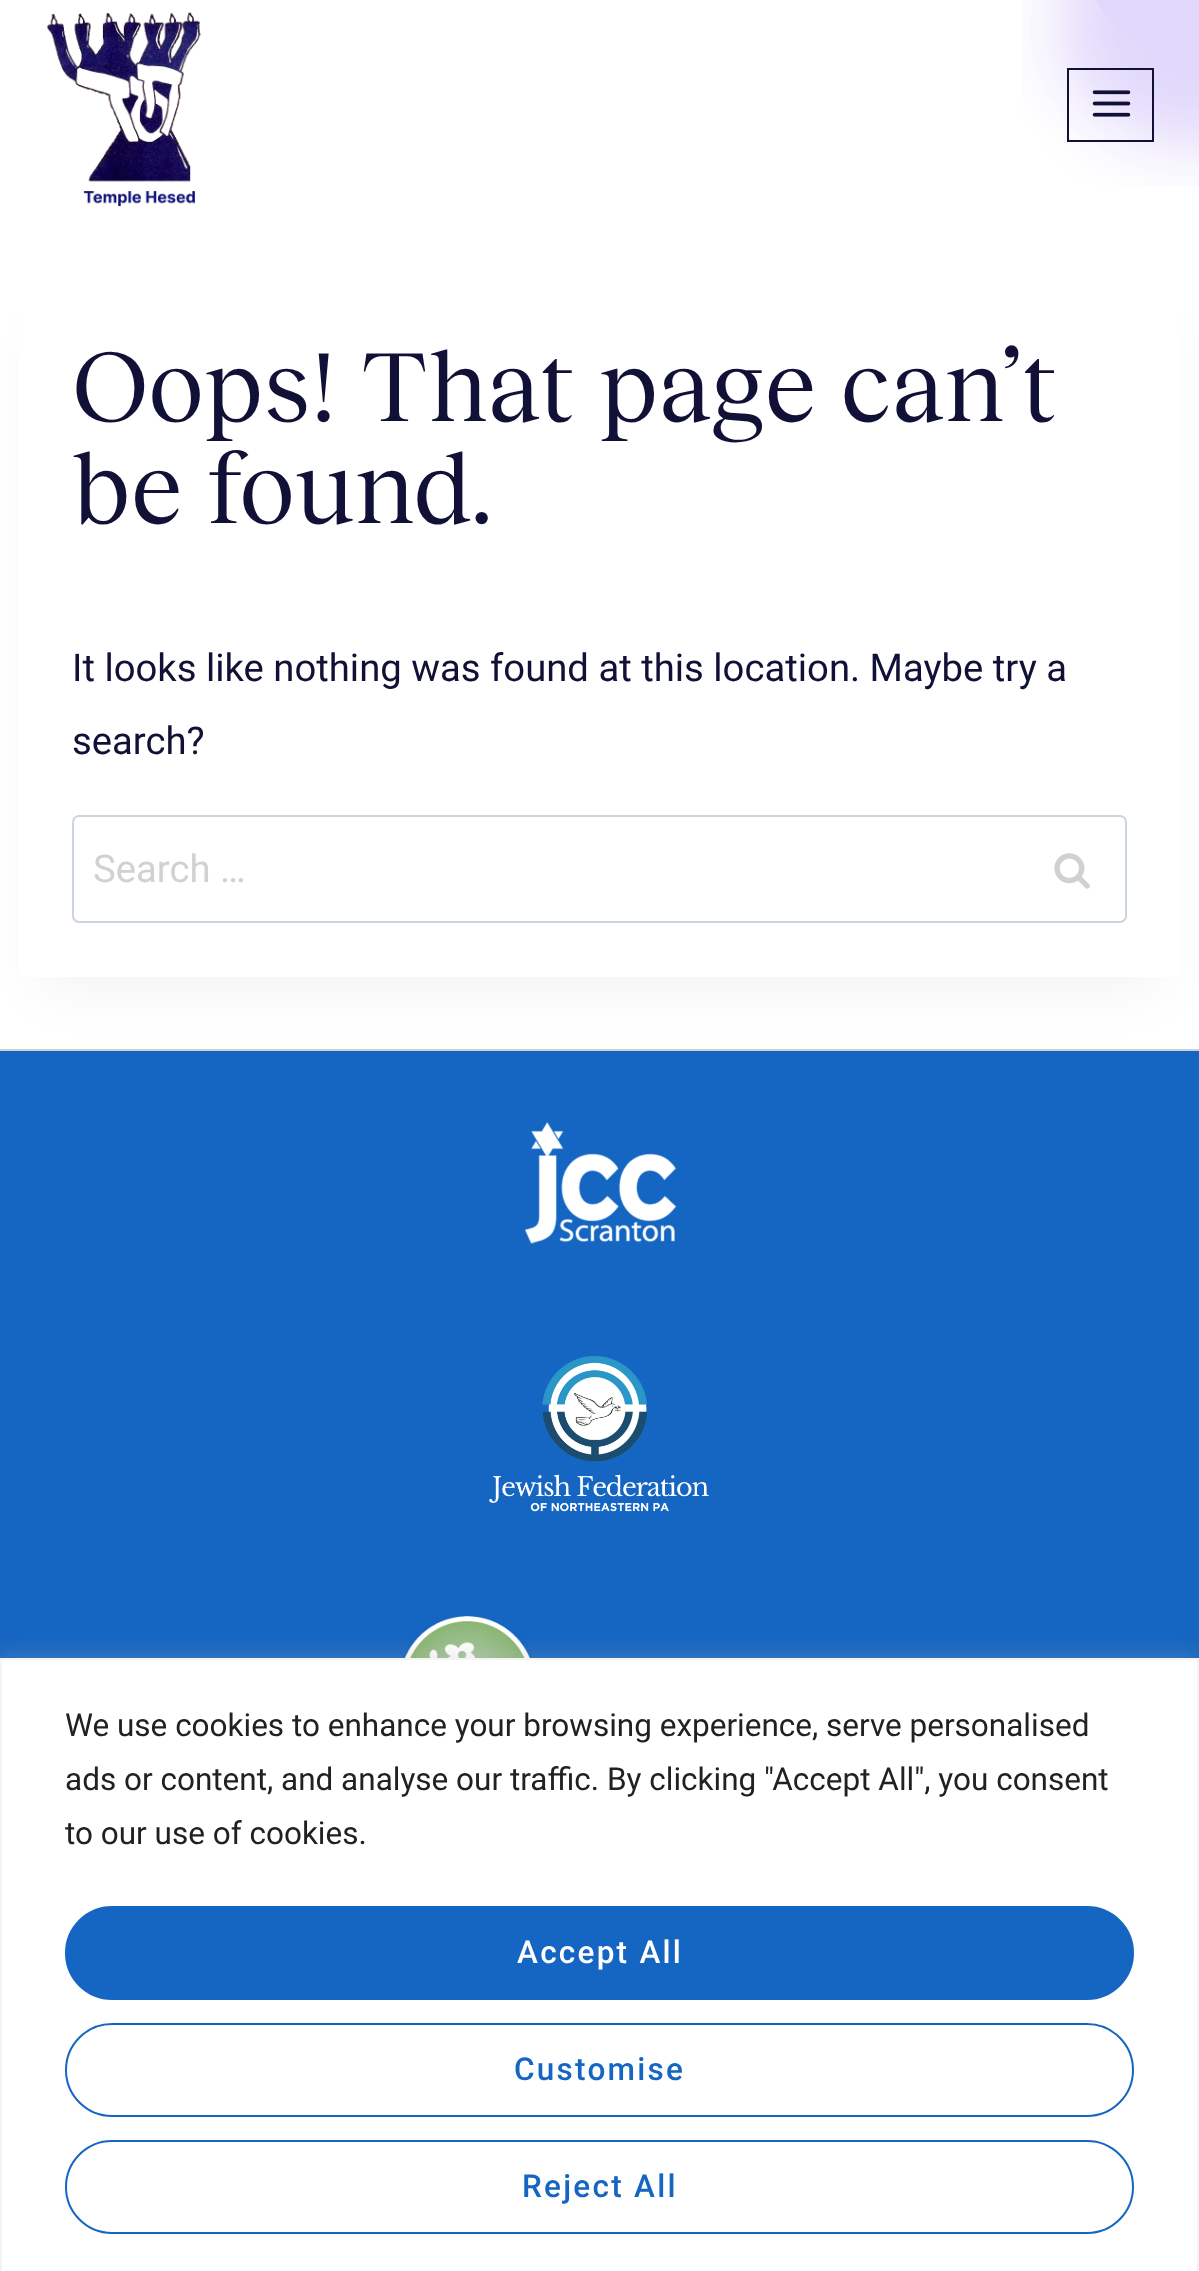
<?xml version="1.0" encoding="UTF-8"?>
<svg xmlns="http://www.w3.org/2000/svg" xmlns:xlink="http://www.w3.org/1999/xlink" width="1199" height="2271">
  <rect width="100%" height="100%" fill="#ffffff" />
  <image x="1022" y="0" width="177" height="186" xlink:href="image1.png" />
  <image x="46" y="12" width="155" height="195" xlink:href="image2.png" />
  <rect x="1068" y="69" width="85" height="72" fill="none" stroke="#111138" stroke-width="2" />
  <image x="1092" y="90" width="39" height="27" xlink:href="image3.png" />
  <rect y="1049" width="1199" height="2" fill="#d1d1d1" />
  <rect x="41" y="335" width="1118" height="653" fill="#000000" fill-opacity="0.05" filter="blur(28px)" />
  <rect x="18" y="279" width="1163" height="698" rx="9" fill="#ffffff" />
  <rect x="73" y="816" width="1053" height="106" rx="6" fill="none" stroke="#cbd5e0" stroke-width="2" />
  <image x="1054" y="853" width="36" height="36" xlink:href="image4.png" />
  <rect y="1051" width="1199" height="607" fill="#1566c2" />
  <image x="525" y="1122" width="152" height="122" xlink:href="image5.png" />
  <image x="489" y="1356" width="220" height="156" xlink:href="image6.png" />
  <image x="403" y="1616" width="129" height="42" xlink:href="image7.png" />
  <rect y="1656" width="1199" height="614" fill="#acabab" fill-opacity="0.3" filter="blur(11px)" />
  <rect x="1" y="1659" width="1197" height="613" fill="#ffffff" stroke="#f4f4f4" stroke-width="2" />
  <rect x="66" y="1907" width="1067" height="92" rx="46" fill="#1566c2" stroke="#1566c2" stroke-width="2" />
  <rect x="66" y="2024" width="1067" height="92" rx="46" fill="none" stroke="#1566c2" stroke-width="2" />
  <rect x="66" y="2141" width="1067" height="92" rx="46" fill="none" stroke="#1566c2" stroke-width="2" />
  <text x="72" y="421" style="font-family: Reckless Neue; font-size: 101.25px; fill: #111138">Oops! That page can’t</text>
  <text x="72" y="523" style="font-family: Reckless Neue; font-size: 101.25px; fill: #111138">be found.</text>
  <text x="72" y="681" style="font-family: Roboto; font-size: 38.25px; fill: #111138">It looks like nothing was found at this location. Maybe try a</text>
  <text x="72" y="754" style="font-family: Roboto; font-size: 38.25px; fill: #111138">search?</text>
  <text x="93" y="882" style="font-family: Roboto; font-size: 38.25px; fill: #d1d1d1">Search …</text>
  <text x="65" y="1736" style="font-family: Roboto; font-size: 31.5px; fill: #212121">We use cookies to enhance your browsing experience, serve personalised</text>
  <text x="65" y="1790" style="font-family: Roboto; font-size: 31.5px; fill: #212121">ads or content, and analyse our traffic. By clicking "Accept All", you consent</text>
  <text x="65" y="1844" style="font-family: Roboto; font-size: 31.5px; fill: #212121">to our use of cookies.</text>
  <text x="517" y="1963" style="font-family: Roboto; font-size: 31.5px; font-weight: 500; letter-spacing: 2.25px; fill: #ffffff">Accept All</text>
  <text x="514" y="2080" style="font-family: Roboto; font-size: 31.5px; font-weight: 500; letter-spacing: 2.25px; fill: #1566c2">Customise</text>
  <text x="522" y="2197" style="font-family: Roboto; font-size: 31.5px; font-weight: 500; letter-spacing: 2.25px; fill: #1566c2">Reject All</text>
</svg>
